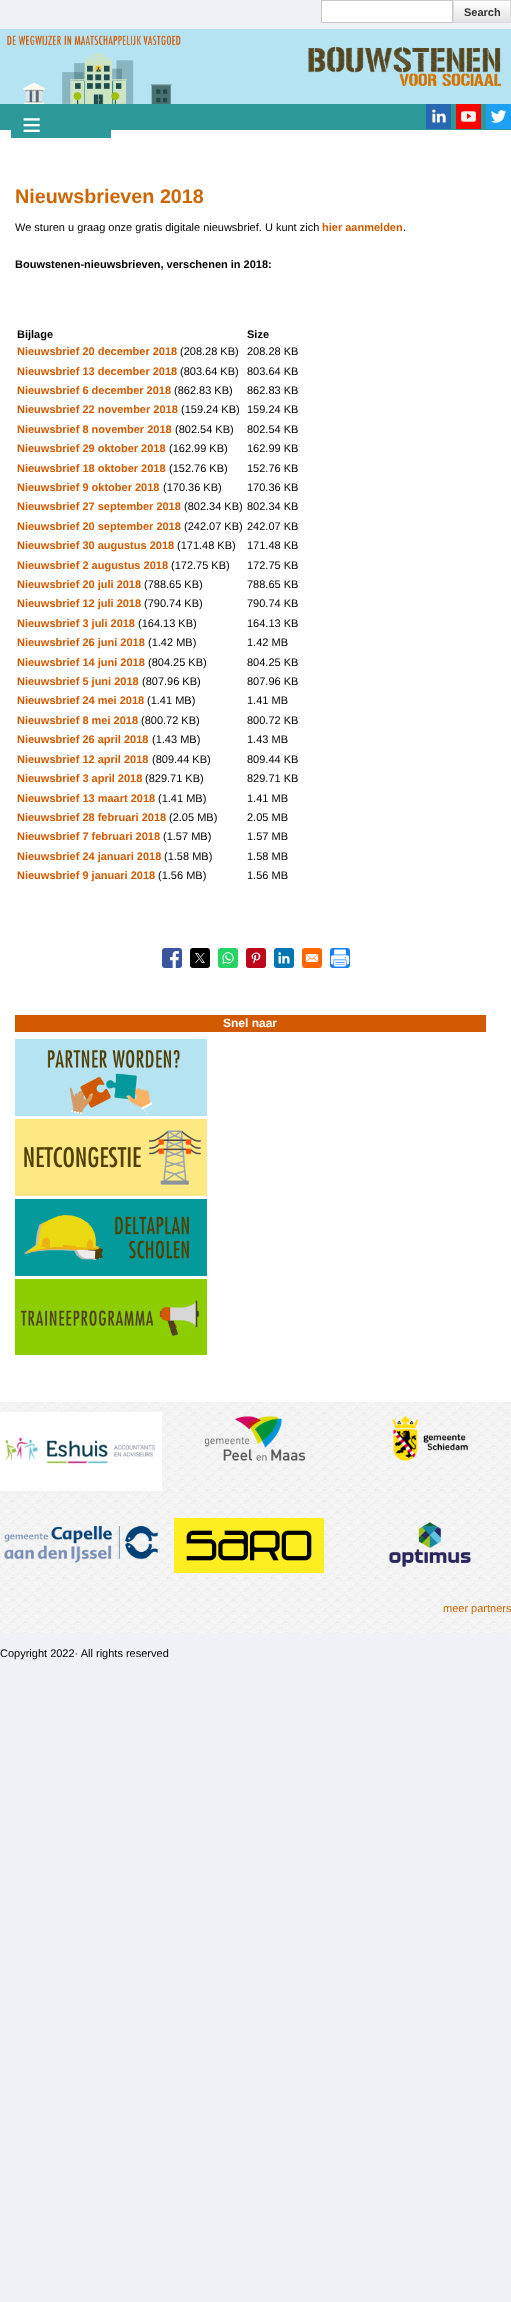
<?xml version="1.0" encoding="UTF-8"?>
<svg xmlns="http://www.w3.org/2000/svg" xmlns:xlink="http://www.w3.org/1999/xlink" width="511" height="2302">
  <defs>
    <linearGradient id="g1" gradientUnits="userSpaceOnUse" x1="482" y1="1" x2="482" y2="22"><stop offset="0" stop-color="#ffffff" /><stop offset="1" stop-color="#e3e3e3" /></linearGradient>
  </defs>
  <rect width="100%" height="100%" fill="#f0f1f6" />
  <rect x="321.5" y="0.5" width="131" height="22" fill="#ffffff" stroke="#c7c7c7" />
  <rect x="454" y="1" width="56" height="21" fill="url(#g1)" />
  <rect x="453.5" y="0.5" width="57" height="22" fill="none" stroke="#dbdbdb" />
  <image x="0" y="29" width="511" height="75" xlink:href="image1.png" />
  <rect y="104" width="511" height="26" fill="#2d9998" />
  <image x="426" y="104" width="25" height="25" xlink:href="image2.png" />
  <image x="456" y="104" width="25" height="25" xlink:href="image3.png" />
  <image x="486" y="104" width="25" height="25" xlink:href="image4.png" />
  <rect y="130" width="511" height="1272" fill="#ffffff" />
  <rect x="11" y="130" width="100" height="8" fill="#2d9998" />
  <image x="162" y="948" width="20" height="20" xlink:href="image5.png" />
  <image x="190" y="948" width="20" height="20" xlink:href="image6.png" />
  <image x="218" y="948" width="20" height="20" xlink:href="image7.png" />
  <image x="246" y="948" width="20" height="20" xlink:href="image8.png" />
  <image x="274" y="948" width="20" height="20" xlink:href="image9.png" />
  <image x="302" y="948" width="20" height="20" xlink:href="image10.png" />
  <image x="330" y="948" width="20" height="20" xlink:href="image11.png" />
  <rect x="15" y="1015" width="471" height="17" fill="#d15a00" />
  <image x="15" y="1039" width="192" height="77" xlink:href="image12.png" />
  <image x="15" y="1119" width="192" height="77" xlink:href="image13.png" />
  <image x="15" y="1199" width="192" height="77" xlink:href="image14.png" />
  <image x="15" y="1279" width="192" height="76" xlink:href="image15.png" />
  <image x="0" y="1402" width="511" height="231" xlink:href="image16.png" />
  <image x="0" y="1412" width="162" height="79" xlink:href="image17.png" />
  <image x="204" y="1416" width="102" height="45" xlink:href="image18.png" />
  <image x="392" y="1416" width="77" height="45" xlink:href="image19.png" />
  <image x="4" y="1526" width="155" height="37" xlink:href="image20.png" />
  <image x="174" y="1518" width="150" height="55" xlink:href="image21.png" />
  <image x="389" y="1522" width="82" height="45" xlink:href="image22.png" />
  <text x="464" y="16" style="font-family: Liberation Sans; font-size: 11px; font-weight: bold; fill: #333333">Search</text>
  <text x="22" y="136" style="font-family: Liberation Sans; font-size: 33px; font-weight: bold; fill: #ffffff">≡</text>
  <text x="15" y="203" style="font-family: Liberation Sans; font-size: 19.75px; font-weight: bold; fill: #cc6600">Nieuwsbrieven 2018</text>
  <text x="15" y="231" style="font-family: Liberation Sans; font-size: 11px; fill: #000000">We sturen u graag onze gratis digitale nieuwsbrief. U kunt zich</text>
  <text x="322" y="231" style="font-family: Liberation Sans; font-size: 11px; font-weight: bold; fill: #d15a00">hier aanmelden</text>
  <text x="403" y="231" style="font-family: Liberation Sans; font-size: 11px; fill: #000000">.</text>
  <text x="15" y="268" style="font-family: Liberation Sans; font-size: 11px; font-weight: bold; fill: #000000">Bouwstenen-nieuwsbrieven, verschenen in 2018:</text>
  <text x="17" y="338" style="font-family: Liberation Sans; font-size: 11px; font-weight: bold; fill: #000000">Bijlage</text>
  <text x="247" y="338" style="font-family: Liberation Sans; font-size: 11px; font-weight: bold; fill: #000000">Size</text>
  <text x="17" y="355" style="font-family: Liberation Sans; font-size: 11px; font-weight: bold; fill: #d15a00">Nieuwsbrief 20 december 2018</text>
  <text x="180" y="355" style="font-family: Liberation Sans; font-size: 11px; fill: #000000">(208.28 KB)</text>
  <text x="247" y="355" style="font-family: Liberation Sans; font-size: 11px; fill: #000000">208.28 KB</text>
  <text x="17" y="375" style="font-family: Liberation Sans; font-size: 11px; font-weight: bold; fill: #d15a00">Nieuwsbrief 13 december 2018</text>
  <text x="180" y="375" style="font-family: Liberation Sans; font-size: 11px; fill: #000000">(803.64 KB)</text>
  <text x="247" y="375" style="font-family: Liberation Sans; font-size: 11px; fill: #000000">803.64 KB</text>
  <text x="17" y="394" style="font-family: Liberation Sans; font-size: 11px; font-weight: bold; fill: #d15a00">Nieuwsbrief 6 december 2018</text>
  <text x="174" y="394" style="font-family: Liberation Sans; font-size: 11px; fill: #000000">(862.83 KB)</text>
  <text x="247" y="394" style="font-family: Liberation Sans; font-size: 11px; fill: #000000">862.83 KB</text>
  <text x="17" y="413" style="font-family: Liberation Sans; font-size: 11px; font-weight: bold; fill: #d15a00">Nieuwsbrief 22 november 2018</text>
  <text x="181" y="413" style="font-family: Liberation Sans; font-size: 11px; fill: #000000">(159.24 KB)</text>
  <text x="247" y="413" style="font-family: Liberation Sans; font-size: 11px; fill: #000000">159.24 KB</text>
  <text x="17" y="433" style="font-family: Liberation Sans; font-size: 11px; font-weight: bold; fill: #d15a00">Nieuwsbrief 8 november 2018</text>
  <text x="175" y="433" style="font-family: Liberation Sans; font-size: 11px; fill: #000000">(802.54 KB)</text>
  <text x="247" y="433" style="font-family: Liberation Sans; font-size: 11px; fill: #000000">802.54 KB</text>
  <text x="17" y="452" style="font-family: Liberation Sans; font-size: 11px; font-weight: bold; fill: #d15a00">Nieuwsbrief 29 oktober 2018</text>
  <text x="169" y="452" style="font-family: Liberation Sans; font-size: 11px; fill: #000000">(162.99 KB)</text>
  <text x="247" y="452" style="font-family: Liberation Sans; font-size: 11px; fill: #000000">162.99 KB</text>
  <text x="17" y="472" style="font-family: Liberation Sans; font-size: 11px; font-weight: bold; fill: #d15a00">Nieuwsbrief 18 oktober 2018</text>
  <text x="169" y="472" style="font-family: Liberation Sans; font-size: 11px; fill: #000000">(152.76 KB)</text>
  <text x="247" y="472" style="font-family: Liberation Sans; font-size: 11px; fill: #000000">152.76 KB</text>
  <text x="17" y="491" style="font-family: Liberation Sans; font-size: 11px; font-weight: bold; fill: #d15a00">Nieuwsbrief 9 oktober 2018</text>
  <text x="163" y="491" style="font-family: Liberation Sans; font-size: 11px; fill: #000000">(170.36 KB)</text>
  <text x="247" y="491" style="font-family: Liberation Sans; font-size: 11px; fill: #000000">170.36 KB</text>
  <text x="17" y="510" style="font-family: Liberation Sans; font-size: 11px; font-weight: bold; fill: #d15a00">Nieuwsbrief 27 september 2018</text>
  <text x="184" y="510" style="font-family: Liberation Sans; font-size: 11px; fill: #000000">(802.34 KB)</text>
  <text x="247" y="510" style="font-family: Liberation Sans; font-size: 11px; fill: #000000">802.34 KB</text>
  <text x="17" y="530" style="font-family: Liberation Sans; font-size: 11px; font-weight: bold; fill: #d15a00">Nieuwsbrief 20 september 2018</text>
  <text x="184" y="530" style="font-family: Liberation Sans; font-size: 11px; fill: #000000">(242.07 KB)</text>
  <text x="247" y="530" style="font-family: Liberation Sans; font-size: 11px; fill: #000000">242.07 KB</text>
  <text x="17" y="549" style="font-family: Liberation Sans; font-size: 11px; font-weight: bold; fill: #d15a00">Nieuwsbrief 30 augustus 2018</text>
  <text x="177" y="549" style="font-family: Liberation Sans; font-size: 11px; fill: #000000">(171.48 KB)</text>
  <text x="247" y="549" style="font-family: Liberation Sans; font-size: 11px; fill: #000000">171.48 KB</text>
  <text x="17" y="569" style="font-family: Liberation Sans; font-size: 11px; font-weight: bold; fill: #d15a00">Nieuwsbrief 2 augustus 2018</text>
  <text x="171" y="569" style="font-family: Liberation Sans; font-size: 11px; fill: #000000">(172.75 KB)</text>
  <text x="247" y="569" style="font-family: Liberation Sans; font-size: 11px; fill: #000000">172.75 KB</text>
  <text x="17" y="588" style="font-family: Liberation Sans; font-size: 11px; font-weight: bold; fill: #d15a00">Nieuwsbrief 20 juli 2018</text>
  <text x="144" y="588" style="font-family: Liberation Sans; font-size: 11px; fill: #000000">(788.65 KB)</text>
  <text x="247" y="588" style="font-family: Liberation Sans; font-size: 11px; fill: #000000">788.65 KB</text>
  <text x="17" y="607" style="font-family: Liberation Sans; font-size: 11px; font-weight: bold; fill: #d15a00">Nieuwsbrief 12 juli 2018</text>
  <text x="144" y="607" style="font-family: Liberation Sans; font-size: 11px; fill: #000000">(790.74 KB)</text>
  <text x="247" y="607" style="font-family: Liberation Sans; font-size: 11px; fill: #000000">790.74 KB</text>
  <text x="17" y="627" style="font-family: Liberation Sans; font-size: 11px; font-weight: bold; fill: #d15a00">Nieuwsbrief 3 juli 2018</text>
  <text x="138" y="627" style="font-family: Liberation Sans; font-size: 11px; fill: #000000">(164.13 KB)</text>
  <text x="247" y="627" style="font-family: Liberation Sans; font-size: 11px; fill: #000000">164.13 KB</text>
  <text x="17" y="646" style="font-family: Liberation Sans; font-size: 11px; font-weight: bold; fill: #d15a00">Nieuwsbrief 26 juni 2018</text>
  <text x="148" y="646" style="font-family: Liberation Sans; font-size: 11px; fill: #000000">(1.42 MB)</text>
  <text x="247" y="646" style="font-family: Liberation Sans; font-size: 11px; fill: #000000">1.42 MB</text>
  <text x="17" y="666" style="font-family: Liberation Sans; font-size: 11px; font-weight: bold; fill: #d15a00">Nieuwsbrief 14 juni 2018</text>
  <text x="148" y="666" style="font-family: Liberation Sans; font-size: 11px; fill: #000000">(804.25 KB)</text>
  <text x="247" y="666" style="font-family: Liberation Sans; font-size: 11px; fill: #000000">804.25 KB</text>
  <text x="17" y="685" style="font-family: Liberation Sans; font-size: 11px; font-weight: bold; fill: #d15a00">Nieuwsbrief 5 juni 2018</text>
  <text x="142" y="685" style="font-family: Liberation Sans; font-size: 11px; fill: #000000">(807.96 KB)</text>
  <text x="247" y="685" style="font-family: Liberation Sans; font-size: 11px; fill: #000000">807.96 KB</text>
  <text x="17" y="704" style="font-family: Liberation Sans; font-size: 11px; font-weight: bold; fill: #d15a00">Nieuwsbrief 24 mei 2018</text>
  <text x="147" y="704" style="font-family: Liberation Sans; font-size: 11px; fill: #000000">(1.41 MB)</text>
  <text x="247" y="704" style="font-family: Liberation Sans; font-size: 11px; fill: #000000">1.41 MB</text>
  <text x="17" y="724" style="font-family: Liberation Sans; font-size: 11px; font-weight: bold; fill: #d15a00">Nieuwsbrief 8 mei 2018</text>
  <text x="141" y="724" style="font-family: Liberation Sans; font-size: 11px; fill: #000000">(800.72 KB)</text>
  <text x="247" y="724" style="font-family: Liberation Sans; font-size: 11px; fill: #000000">800.72 KB</text>
  <text x="17" y="743" style="font-family: Liberation Sans; font-size: 11px; font-weight: bold; fill: #d15a00">Nieuwsbrief 26 april 2018</text>
  <text x="152" y="743" style="font-family: Liberation Sans; font-size: 11px; fill: #000000">(1.43 MB)</text>
  <text x="247" y="743" style="font-family: Liberation Sans; font-size: 11px; fill: #000000">1.43 MB</text>
  <text x="17" y="763" style="font-family: Liberation Sans; font-size: 11px; font-weight: bold; fill: #d15a00">Nieuwsbrief 12 april 2018</text>
  <text x="152" y="763" style="font-family: Liberation Sans; font-size: 11px; fill: #000000">(809.44 KB)</text>
  <text x="247" y="763" style="font-family: Liberation Sans; font-size: 11px; fill: #000000">809.44 KB</text>
  <text x="17" y="782" style="font-family: Liberation Sans; font-size: 11px; font-weight: bold; fill: #d15a00">Nieuwsbrief 3 april 2018</text>
  <text x="145" y="782" style="font-family: Liberation Sans; font-size: 11px; fill: #000000">(829.71 KB)</text>
  <text x="247" y="782" style="font-family: Liberation Sans; font-size: 11px; fill: #000000">829.71 KB</text>
  <text x="17" y="802" style="font-family: Liberation Sans; font-size: 11px; font-weight: bold; fill: #d15a00">Nieuwsbrief 13 maart 2018</text>
  <text x="158" y="802" style="font-family: Liberation Sans; font-size: 11px; fill: #000000">(1.41 MB)</text>
  <text x="247" y="802" style="font-family: Liberation Sans; font-size: 11px; fill: #000000">1.41 MB</text>
  <text x="17" y="821" style="font-family: Liberation Sans; font-size: 11px; font-weight: bold; fill: #d15a00">Nieuwsbrief 28 februari 2018</text>
  <text x="169" y="821" style="font-family: Liberation Sans; font-size: 11px; fill: #000000">(2.05 MB)</text>
  <text x="247" y="821" style="font-family: Liberation Sans; font-size: 11px; fill: #000000">2.05 MB</text>
  <text x="17" y="840" style="font-family: Liberation Sans; font-size: 11px; font-weight: bold; fill: #d15a00">Nieuwsbrief 7 februari 2018</text>
  <text x="163" y="840" style="font-family: Liberation Sans; font-size: 11px; fill: #000000">(1.57 MB)</text>
  <text x="247" y="840" style="font-family: Liberation Sans; font-size: 11px; fill: #000000">1.57 MB</text>
  <text x="17" y="860" style="font-family: Liberation Sans; font-size: 11px; font-weight: bold; fill: #d15a00">Nieuwsbrief 24 januari 2018</text>
  <text x="164" y="860" style="font-family: Liberation Sans; font-size: 11px; fill: #000000">(1.58 MB)</text>
  <text x="247" y="860" style="font-family: Liberation Sans; font-size: 11px; fill: #000000">1.58 MB</text>
  <text x="17" y="879" style="font-family: Liberation Sans; font-size: 11px; font-weight: bold; fill: #d15a00">Nieuwsbrief 9 januari 2018</text>
  <text x="158" y="879" style="font-family: Liberation Sans; font-size: 11px; fill: #000000">(1.56 MB)</text>
  <text x="247" y="879" style="font-family: Liberation Sans; font-size: 11px; fill: #000000">1.56 MB</text>
  <text x="223" y="1027" style="font-family: Liberation Sans; font-size: 12px; font-weight: bold; fill: #ffffff">Snel naar</text>
  <text x="443" y="1612" style="font-family: Liberation Sans; font-size: 11px; fill: #cc6600">meer partners</text>
  <text x="0" y="1657" style="font-family: Liberation Sans; font-size: 11px; fill: #000000">Copyright 2022· All rights reserved</text>
</svg>
